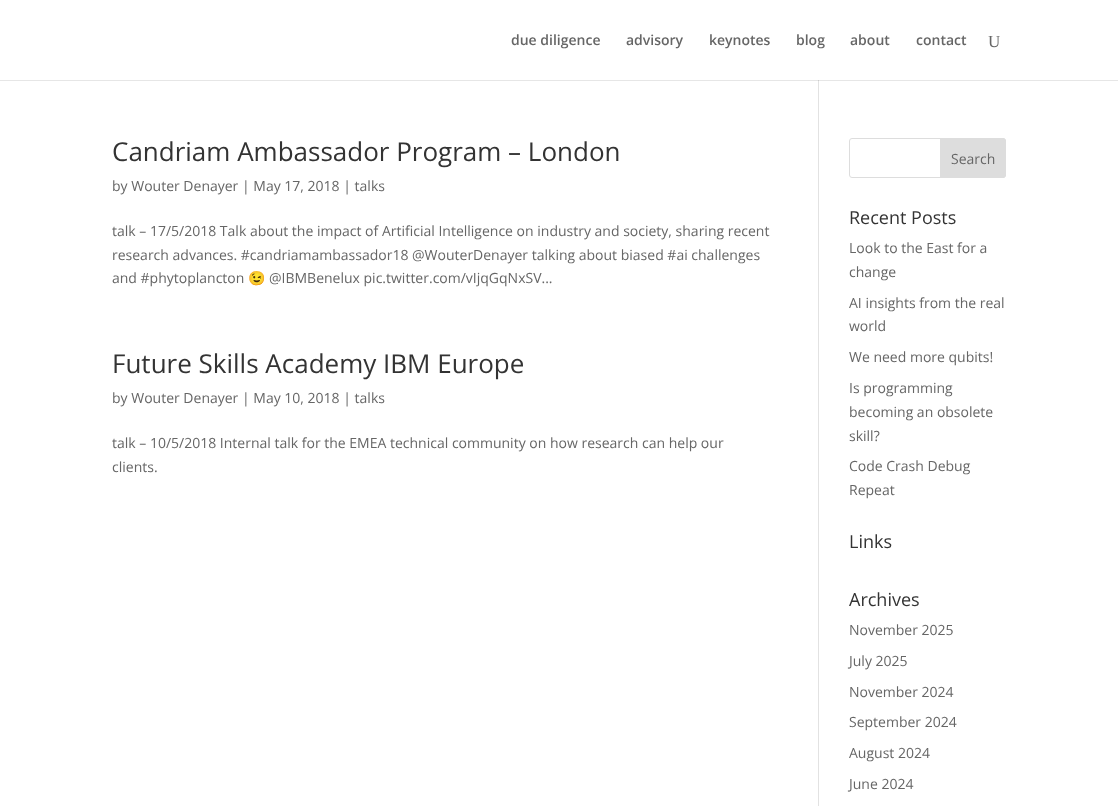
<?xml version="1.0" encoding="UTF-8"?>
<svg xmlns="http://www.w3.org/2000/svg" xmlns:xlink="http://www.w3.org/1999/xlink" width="1118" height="806">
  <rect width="100%" height="100%" fill="#ffffff" />
  <rect y="80" width="1118" height="1" fill="#e6e6e6" />
  <rect x="818" y="80" width="1" height="726" fill="#e2e2e2" />
  <rect x="818" y="80" width="1" height="1" fill="#cbcbcb" />
  <rect x="849.5" y="138.5" width="156" height="39" rx="2.5" fill="none" stroke="#dddddd" />
  <path d="M 940.5 138.5 h 62.5 c 1.5 0 2.5 1 2.5 2.5 v 34 c 0 1.5 -1 2.5 -2.5 2.5 h -62.5 z" fill="#dddddd" stroke="#dddddd" />
  <text x="511" y="45" style="font-family: Open Sans; font-size: 14px; font-weight: 600; fill: #666666">due diligence</text>
  <text x="626" y="45" style="font-family: Open Sans; font-size: 14px; font-weight: 600; fill: #666666">advisory</text>
  <text x="709" y="45" style="font-family: Open Sans; font-size: 14px; font-weight: 600; fill: #666666">keynotes</text>
  <text x="796" y="45" style="font-family: Open Sans; font-size: 14px; font-weight: 600; fill: #666666">blog</text>
  <text x="850" y="45" style="font-family: Open Sans; font-size: 14px; font-weight: 600; fill: #666666">about</text>
  <text x="916" y="45" style="font-family: Open Sans; font-size: 14px; font-weight: 600; fill: #666666">contact</text>
  <text x="988" y="47" style="font-family: Liberation Serif; font-size: 17px; fill: #666666">U</text>
  <text x="112" y="161" style="font-family: Open Sans; font-size: 26px; fill: #333333">Candriam Ambassador Program – London</text>
  <text x="112" y="191" style="font-family: Open Sans; font-size: 14px; fill: #666666">by Wouter Denayer | May 17, 2018 | talks</text>
  <text x="112" y="236" style="font-family: Open Sans; font-size: 14px; fill: #666666">talk – 17/5/2018 Talk about the impact of Artificial Intelligence on industry and society, sharing recent</text>
  <text x="112" y="260" style="font-family: Open Sans; font-size: 14px; fill: #666666">research advances. #candriamambassador18 @WouterDenayer talking about biased #ai challenges</text>
  <text x="112" y="283" style="font-family: Open Sans; font-size: 14px; fill: #666666">and #phytoplancton</text>
  <text x="248" y="283" style="font-family: Noto Color Emoji; font-size: 14px; fill: #666666">😉</text>
  <text x="269" y="283" style="font-family: Open Sans; font-size: 14px; fill: #666666">@IBMBenelux pic.twitter.com/vIjqGqNxSV...</text>
  <text x="112" y="373" style="font-family: Open Sans; font-size: 26px; fill: #333333">Future Skills Academy IBM Europe</text>
  <text x="112" y="403" style="font-family: Open Sans; font-size: 14px; fill: #666666">by Wouter Denayer | May 10, 2018 | talks</text>
  <text x="112" y="448" style="font-family: Open Sans; font-size: 14px; fill: #666666">talk – 10/5/2018 Internal talk for the EMEA technical community on how research can help our</text>
  <text x="112" y="472" style="font-family: Open Sans; font-size: 14px; fill: #666666">clients.</text>
  <text x="951" y="164" style="font-family: Open Sans; font-size: 14px; fill: #666666">Search</text>
  <text x="849" y="224" style="font-family: Open Sans; font-size: 18px; fill: #333333">Recent Posts</text>
  <text x="849" y="253" style="font-family: Open Sans; font-size: 14px; fill: #666666">Look to the East for a</text>
  <text x="849" y="277" style="font-family: Open Sans; font-size: 14px; fill: #666666">change</text>
  <text x="849" y="308" style="font-family: Open Sans; font-size: 14px; fill: #666666">AI insights from the real</text>
  <text x="849" y="331" style="font-family: Open Sans; font-size: 14px; fill: #666666">world</text>
  <text x="849" y="362" style="font-family: Open Sans; font-size: 14px; fill: #666666">We need more qubits!</text>
  <text x="849" y="393" style="font-family: Open Sans; font-size: 14px; fill: #666666">Is programming</text>
  <text x="849" y="417" style="font-family: Open Sans; font-size: 14px; fill: #666666">becoming an obsolete</text>
  <text x="849" y="441" style="font-family: Open Sans; font-size: 14px; fill: #666666">skill?</text>
  <text x="849" y="471" style="font-family: Open Sans; font-size: 14px; fill: #666666">Code Crash Debug</text>
  <text x="849" y="495" style="font-family: Open Sans; font-size: 14px; fill: #666666">Repeat</text>
  <text x="849" y="548" style="font-family: Open Sans; font-size: 18px; fill: #333333">Links</text>
  <text x="849" y="606" style="font-family: Open Sans; font-size: 18px; fill: #333333">Archives</text>
  <text x="849" y="635" style="font-family: Open Sans; font-size: 14px; fill: #666666">November 2025</text>
  <text x="849" y="666" style="font-family: Open Sans; font-size: 14px; fill: #666666">July 2025</text>
  <text x="849" y="697" style="font-family: Open Sans; font-size: 14px; fill: #666666">November 2024</text>
  <text x="849" y="727" style="font-family: Open Sans; font-size: 14px; fill: #666666">September 2024</text>
  <text x="849" y="758" style="font-family: Open Sans; font-size: 14px; fill: #666666">August 2024</text>
  <text x="849" y="789" style="font-family: Open Sans; font-size: 14px; fill: #666666">June 2024</text>
</svg>
